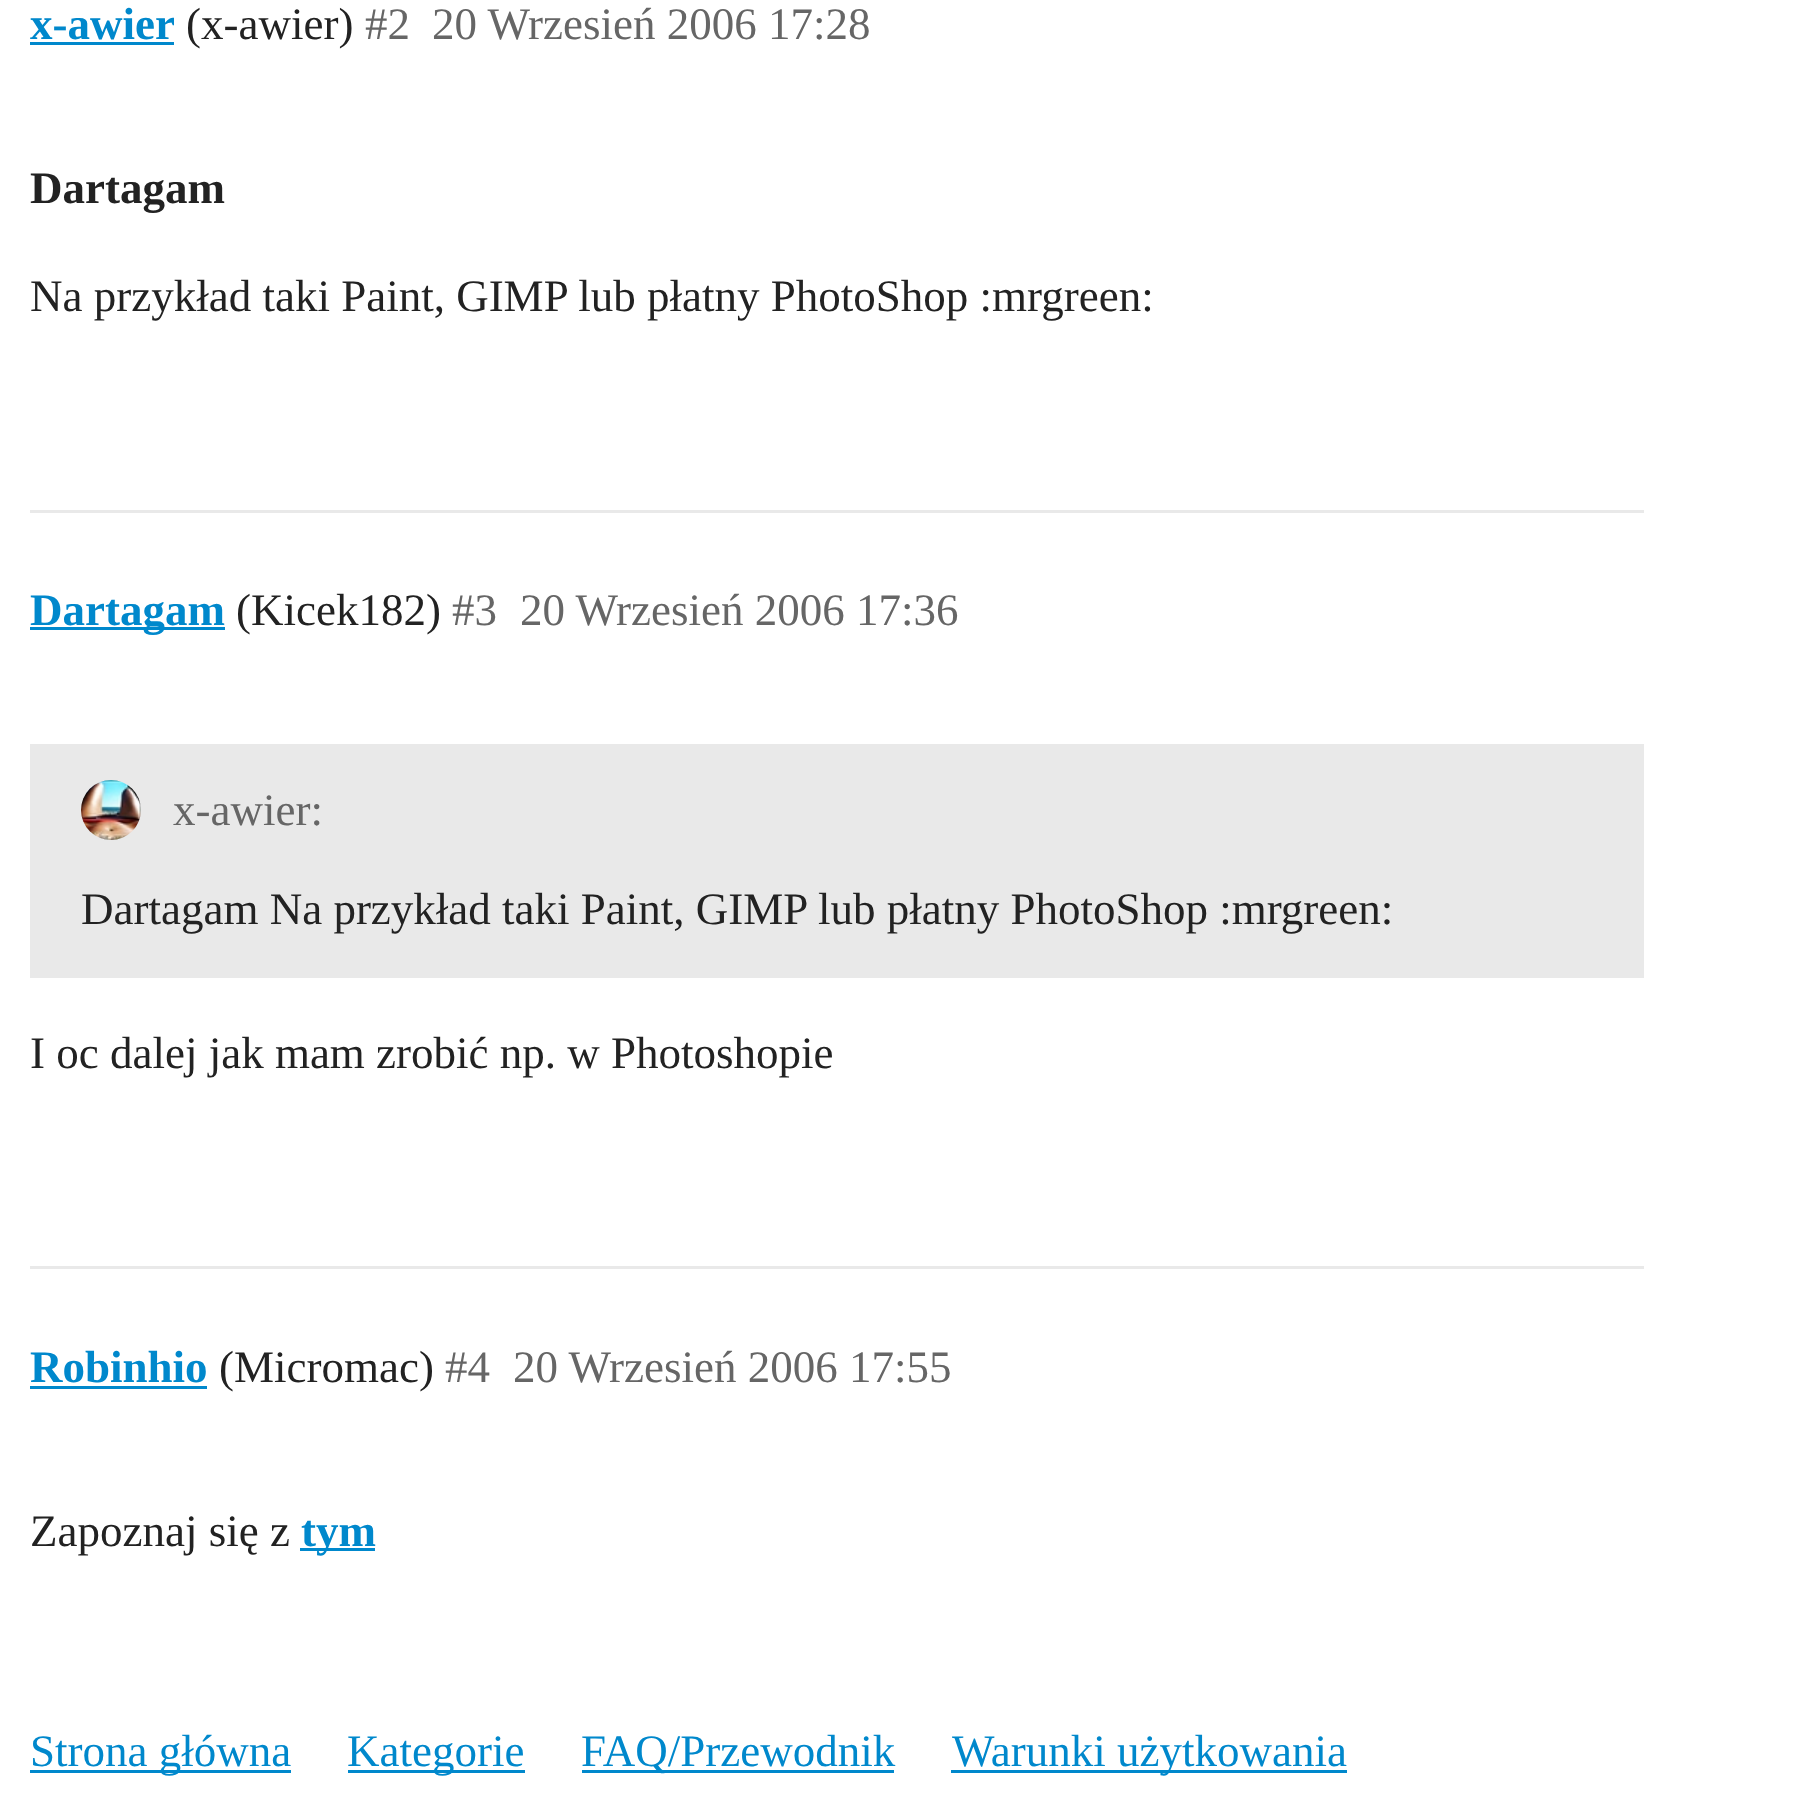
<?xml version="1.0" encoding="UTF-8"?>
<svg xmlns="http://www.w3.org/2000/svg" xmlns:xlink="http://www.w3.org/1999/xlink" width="1815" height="1798">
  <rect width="100%" height="100%" fill="#ffffff" />
  <rect x="30" y="42" width="144" height="3" fill="#0088cc" />
  <rect x="30" y="510" width="1614" height="3" fill="#e9e9e9" />
  <rect x="30" y="627" width="195" height="3" fill="#0088cc" />
  <rect x="30" y="744" width="1614" height="234" fill="#e9e9e9" />
  <image x="81" y="780" width="60" height="60" xlink:href="image1.png" />
  <rect x="30" y="1266" width="1614" height="3" fill="#e9e9e9" />
  <rect x="30" y="1386" width="177" height="3" fill="#0088cc" />
  <rect x="300" y="1548" width="75" height="3" fill="#0088cc" />
  <rect x="30" y="1770" width="261" height="3" fill="#0088cc" />
  <rect x="348" y="1770" width="177" height="3" fill="#0088cc" />
  <rect x="582" y="1770" width="312" height="3" fill="#0088cc" />
  <rect x="951" y="1770" width="396" height="3" fill="#0088cc" />
  <text x="30" y="39" style="font-family: Liberation Serif; font-size: 45px; font-weight: bold; fill: #0088cc">x-awier</text>
  <text x="186" y="39" style="font-family: Liberation Serif; font-size: 45px; fill: #222222">(x-awier)</text>
  <text x="365" y="39" style="font-family: Liberation Serif; font-size: 45px; fill: #666666">#2</text>
  <text x="432" y="39" style="font-family: Liberation Serif; font-size: 45px; fill: #666666">20 Wrzesień 2006 17:28</text>
  <text x="30" y="203" style="font-family: Liberation Serif; font-size: 45px; font-weight: bold; fill: #222222">Dartagam</text>
  <text x="30" y="311" style="font-family: Liberation Serif; font-size: 45px; fill: #222222">Na przykład taki Paint, GIMP lub płatny PhotoShop :mrgreen:</text>
  <text x="30" y="625" style="font-family: Liberation Serif; font-size: 45px; font-weight: bold; fill: #0088cc">Dartagam</text>
  <text x="236" y="625" style="font-family: Liberation Serif; font-size: 45px; fill: #222222">(Kicek182)</text>
  <text x="452" y="625" style="font-family: Liberation Serif; font-size: 45px; fill: #666666">#3</text>
  <text x="520" y="625" style="font-family: Liberation Serif; font-size: 45px; fill: #666666">20 Wrzesień 2006 17:36</text>
  <text x="173" y="825" style="font-family: Liberation Serif; font-size: 45px; fill: #666666">x-awier:</text>
  <text x="81" y="924" style="font-family: Liberation Serif; font-size: 45px; fill: #222222">Dartagam Na przykład taki Paint, GIMP lub płatny PhotoShop :mrgreen:</text>
  <text x="30" y="1068" style="font-family: Liberation Serif; font-size: 45px; fill: #222222">I oc dalej jak mam zrobić np. w Photoshopie</text>
  <text x="30" y="1382" style="font-family: Liberation Serif; font-size: 45px; font-weight: bold; fill: #0088cc">Robinhio</text>
  <text x="219" y="1382" style="font-family: Liberation Serif; font-size: 45px; fill: #222222">(Micromac)</text>
  <text x="445" y="1382" style="font-family: Liberation Serif; font-size: 45px; fill: #666666">#4</text>
  <text x="513" y="1382" style="font-family: Liberation Serif; font-size: 45px; fill: #666666">20 Wrzesień 2006 17:55</text>
  <text x="30" y="1546" style="font-family: Liberation Serif; font-size: 45px; fill: #222222">Zapoznaj się z</text>
  <text x="301" y="1546" style="font-family: Liberation Serif; font-size: 45px; font-weight: bold; fill: #0088cc">tym</text>
  <text x="30" y="1766" style="font-family: Liberation Serif; font-size: 45px; fill: #0088cc">Strona główna</text>
  <text x="347" y="1766" style="font-family: Liberation Serif; font-size: 45px; fill: #0088cc">Kategorie</text>
  <text x="581" y="1766" style="font-family: Liberation Serif; font-size: 45px; fill: #0088cc">FAQ/Przewodnik</text>
  <text x="952" y="1766" style="font-family: Liberation Serif; font-size: 45px; fill: #0088cc">Warunki użytkowania</text>
</svg>
